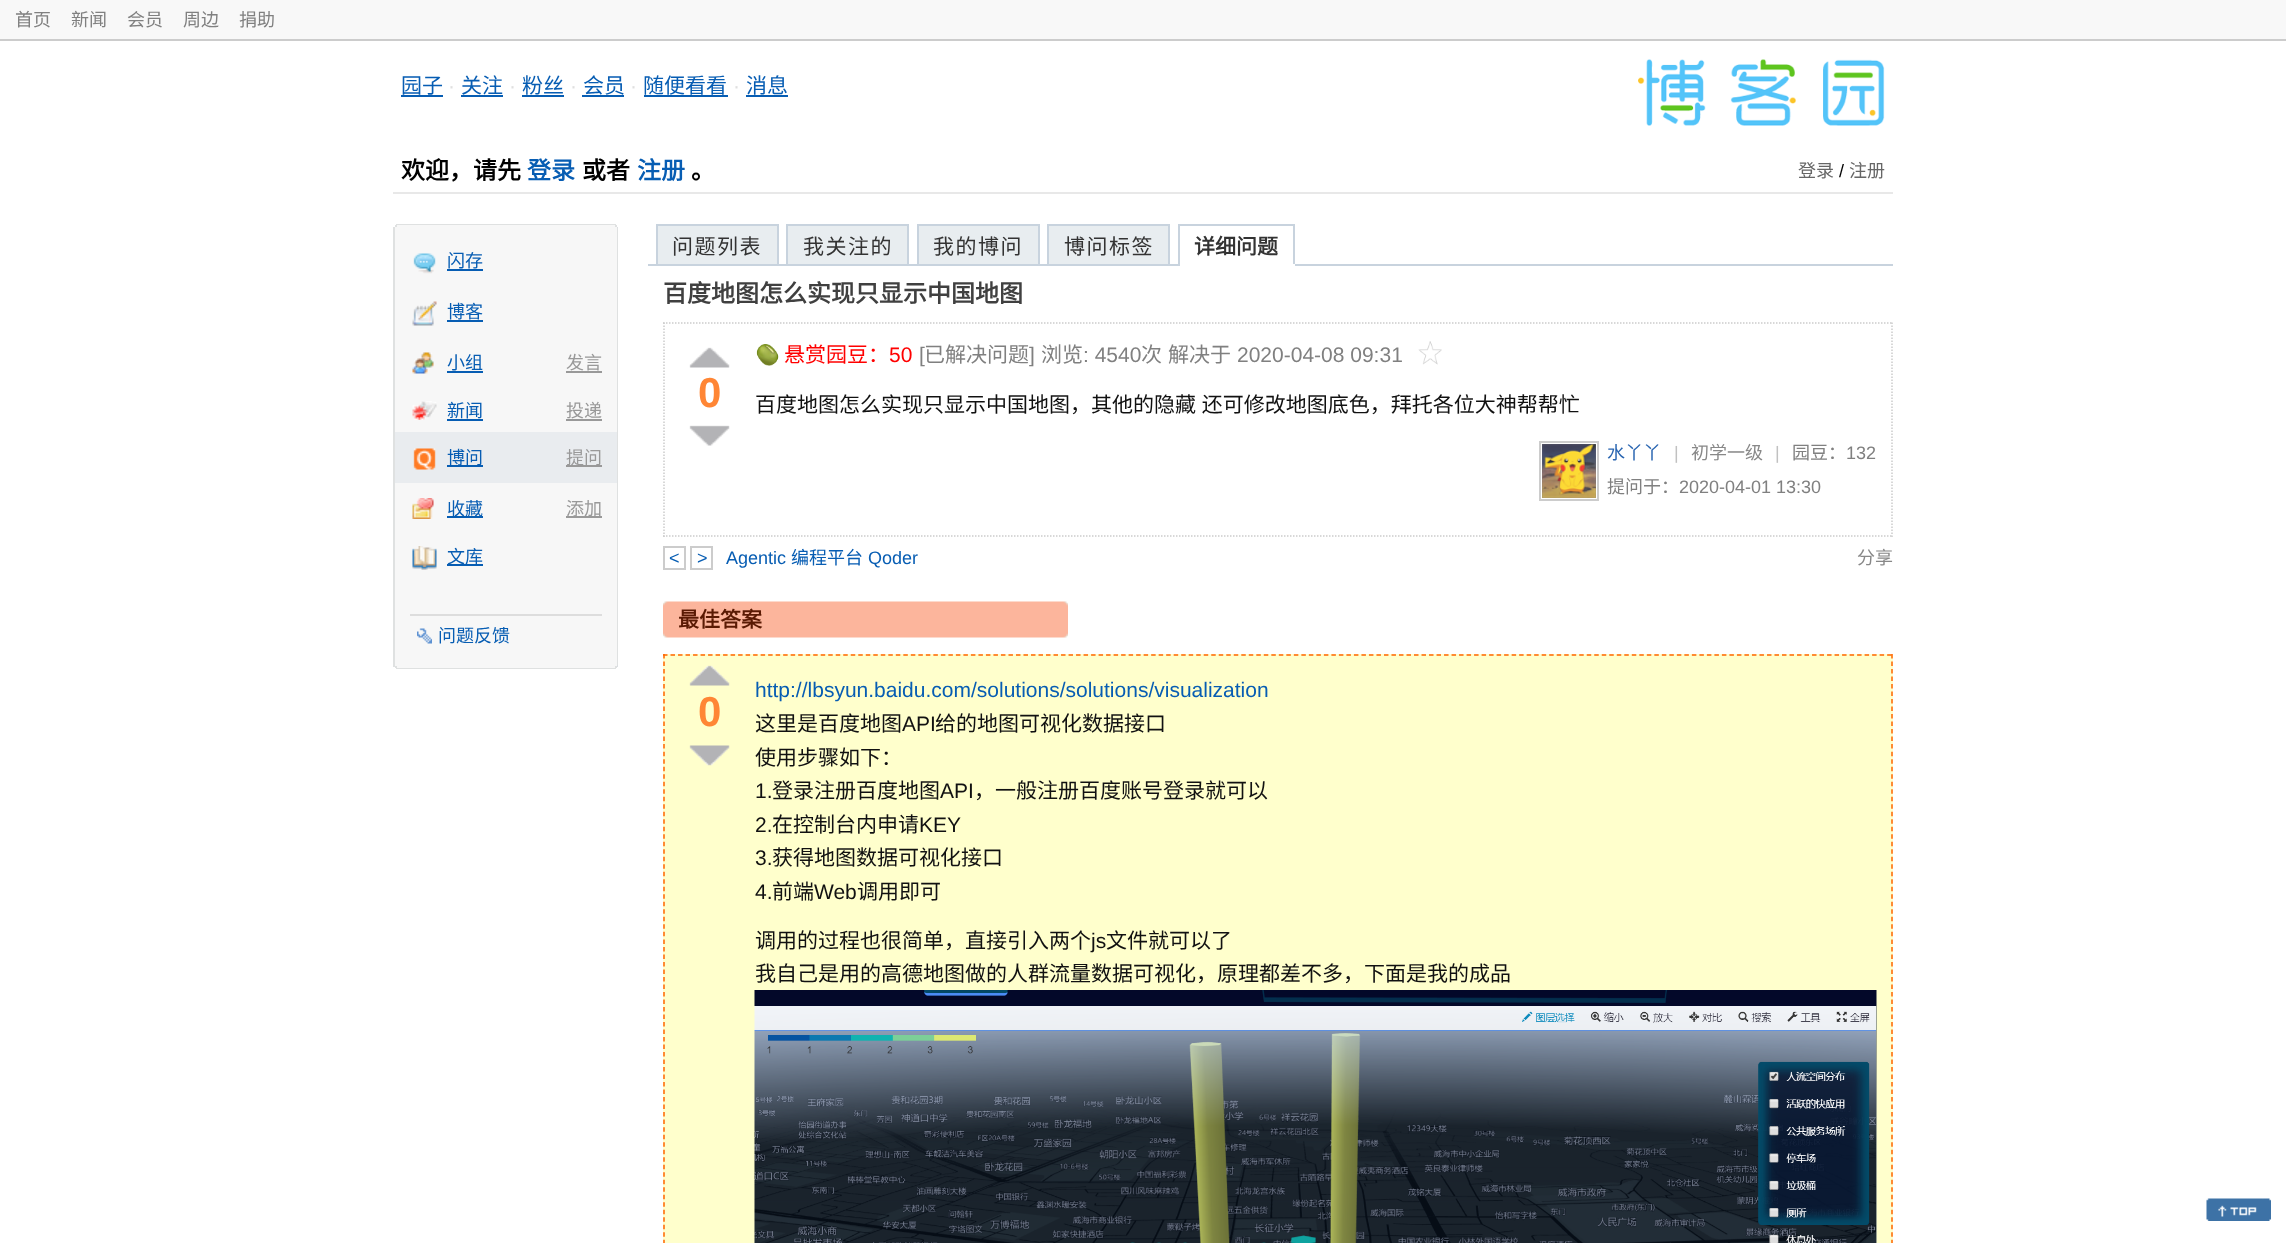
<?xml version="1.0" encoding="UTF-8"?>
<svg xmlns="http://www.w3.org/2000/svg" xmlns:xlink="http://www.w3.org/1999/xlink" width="2286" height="1243">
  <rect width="100%" height="100%" fill="#ffffff" />
  <rect width="2286" height="39" fill="#f8f8f8" />
  <rect y="39" width="2286" height="2" fill="#cccccc" />
  <rect x="393" y="192" width="1500" height="2" fill="#e8e8e8" />
  <rect x="401" y="95" width="42" height="2" fill="#075db3" />
  <rect x="461" y="95" width="42" height="2" fill="#075db3" />
  <rect x="522" y="95" width="42" height="2" fill="#075db3" />
  <rect x="582" y="95" width="42" height="2" fill="#075db3" />
  <rect x="644" y="95" width="84" height="2" fill="#075db3" />
  <rect x="746" y="95" width="42" height="2" fill="#075db3" />
  <image x="1638" y="59" width="247" height="67" xlink:href="image1.png" />
  <rect x="396" y="224" width="220" height="1" fill="#dfe1e1" />
  <rect x="395" y="225" width="222" height="2" fill="#f7f7f7" />
  <rect x="615" y="225" width="2" height="2" fill="#dfe1e1" />
  <rect x="395" y="225" width="2" height="2" fill="#dfe1e1" />
  <rect x="393" y="227" width="225" height="1" fill="#f7f7f7" />
  <rect x="617" y="227" width="1" height="2" fill="#dbdee2" />
  <rect x="393" y="227" width="2" height="438" fill="#dfe1e1" />
  <rect x="395" y="228" width="222" height="437" fill="#f7f7f7" />
  <rect x="617" y="228" width="1" height="437" fill="#dfe1e1" />
  <image x="413" y="253" width="23" height="21" xlink:href="image2.png" />
  <rect x="447" y="269" width="36" height="2" fill="#075db3" />
  <image x="412" y="301" width="25" height="25" xlink:href="image3.png" />
  <rect x="447" y="320" width="36" height="2" fill="#075db3" />
  <image x="412" y="352" width="22" height="22" xlink:href="image4.png" />
  <rect x="447" y="371" width="36" height="2" fill="#075db3" />
  <rect x="566" y="371" width="36" height="2" fill="#999999" />
  <image x="412" y="401" width="25" height="19" xlink:href="image5.png" />
  <rect x="447" y="419" width="36" height="2" fill="#075db3" />
  <rect x="566" y="419" width="36" height="2" fill="#999999" />
  <rect x="395" y="432" width="222" height="51" fill="#e9ecef" />
  <image x="413" y="448" width="23" height="22" xlink:href="image6.png" />
  <rect x="447" y="465" width="36" height="2" fill="#075db3" />
  <rect x="566" y="465" width="36" height="2" fill="#999999" />
  <image x="412" y="498" width="22" height="21" xlink:href="image7.png" />
  <rect x="447" y="516" width="36" height="2" fill="#075db3" />
  <rect x="566" y="516" width="36" height="2" fill="#999999" />
  <image x="412" y="546" width="25" height="24" xlink:href="image8.png" />
  <rect x="447" y="564" width="36" height="2" fill="#075db3" />
  <rect x="410" y="614" width="192" height="2" fill="#dddddd" />
  <image x="417" y="628" width="15" height="16" xlink:href="image9.png" />
  <rect x="393" y="665" width="225" height="1" fill="#f7f7f7" />
  <rect x="617" y="665" width="1" height="2" fill="#dbdee2" />
  <rect x="393" y="665" width="2" height="2" fill="#dfe1e1" />
  <rect x="395" y="666" width="222" height="2" fill="#f7f7f7" />
  <rect x="615" y="666" width="2" height="2" fill="#dfe1e1" />
  <rect x="395" y="666" width="2" height="2" fill="#dfe1e1" />
  <rect x="396" y="668" width="220" height="1" fill="#dfe1e1" />
  <rect x="648" y="264" width="1245" height="2" fill="#c8d3de" />
  <rect x="657" y="225" width="121" height="40" fill="#e8edf0" stroke="#c8d3de" stroke-width="2" />
  <rect x="787" y="225" width="121" height="40" fill="#e8edf0" stroke="#c8d3de" stroke-width="2" />
  <rect x="918" y="225" width="121" height="40" fill="#e8edf0" stroke="#c8d3de" stroke-width="2" />
  <rect x="1048" y="225" width="121" height="40" fill="#e8edf0" stroke="#c8d3de" stroke-width="2" />
  <rect x="1178" y="224" width="117" height="2" fill="#c8d3de" />
  <rect x="1293" y="224" width="2" height="42" fill="#c8d3de" />
  <rect x="1178" y="264" width="117" height="2" fill="#ffffff" />
  <rect x="1178" y="224" width="2" height="42" fill="#c8d3de" />
  <path d="M 663 323 h 1230" fill="none" stroke="#cccccc" stroke-width="1.5" stroke-dasharray="1.5 1.5" />
  <path d="M 1892 322.5 v 214.5" fill="none" stroke="#cccccc" stroke-width="1.5" stroke-dasharray="1.5 1.5" />
  <path d="M 663 536 h 1230" fill="none" stroke="#cccccc" stroke-width="1.5" stroke-dasharray="1.5 1.5" />
  <path d="M 664 322.5 v 214.5" fill="none" stroke="#cccccc" stroke-width="1.5" stroke-dasharray="1.5 1.5" />
  <image x="689" y="347" width="41" height="21" xlink:href="image10.png" />
  <image x="689" y="425" width="41" height="21" xlink:href="image11.png" />
  <image x="756" y="344" width="23" height="22" xlink:href="image12.png" />
  <image x="1418" y="341" width="24" height="24" xlink:href="image13.png" />
  <rect x="1540" y="442" width="58" height="58" fill="none" stroke="#cccccc" stroke-width="2" />
  <image x="1542" y="444" width="54" height="54" xlink:href="image14.png" />
  <rect x="664" y="547" width="21" height="22" fill="none" stroke="#cccccc" stroke-width="2" />
  <rect x="691" y="547" width="21" height="22" fill="none" stroke="#cccccc" stroke-width="2" />
  <image x="663" y="601" width="405" height="37" xlink:href="image15.png" />
  <rect x="663" y="654" width="1230" height="589" fill="#ffffcc" />
  <path d="M 663 655 h 1230" fill="none" stroke="#ff6600" stroke-width="1.5" stroke-dasharray="4.5 3.01" />
  <path d="M 1892 654 v 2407.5" fill="none" stroke="#ff6600" stroke-width="1.5" stroke-dasharray="4.5 3.01" />
  <path d="M 664 654 v 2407.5" fill="none" stroke="#ff6600" stroke-width="1.5" stroke-dasharray="4.5 3.01" />
  <image x="689" y="665" width="41" height="21" xlink:href="image16.png" />
  <image x="689" y="745" width="41" height="21" xlink:href="image17.png" />
  <image x="754" y="990" width="1123" height="253" xlink:href="image18.png" />
  <image x="2206" y="1198" width="65" height="23" xlink:href="image19.png" />
  <text x="15" y="26" style="font-family: Noto Sans CJK SC; font-size: 18px; fill: #808080">首页</text>
  <text x="71" y="26" style="font-family: Noto Sans CJK SC; font-size: 18px; fill: #808080">新闻</text>
  <text x="127" y="26" style="font-family: Noto Sans CJK SC; font-size: 18px; fill: #808080">会员</text>
  <text x="183" y="26" style="font-family: Noto Sans CJK SC; font-size: 18px; fill: #808080">周边</text>
  <text x="239" y="26" style="font-family: Noto Sans CJK SC; font-size: 18px; fill: #808080">捐助</text>
  <text x="401" y="93" style="font-family: Noto Sans CJK SC; font-size: 21px; fill: #075db3">园子</text>
  <text x="448" y="93" style="font-family: Liberation Sans; font-size: 21px; fill: #dfdfdf">·</text>
  <text x="461" y="93" style="font-family: Noto Sans CJK SC; font-size: 21px; fill: #075db3">关注</text>
  <text x="509" y="93" style="font-family: Liberation Sans; font-size: 21px; fill: #dfdfdf">·</text>
  <text x="522" y="93" style="font-family: Noto Sans CJK SC; font-size: 21px; fill: #075db3">粉丝</text>
  <text x="570" y="93" style="font-family: Liberation Sans; font-size: 21px; fill: #dfdfdf">·</text>
  <text x="583" y="93" style="font-family: Noto Sans CJK SC; font-size: 21px; fill: #075db3">会员</text>
  <text x="630" y="93" style="font-family: Liberation Sans; font-size: 21px; fill: #dfdfdf">·</text>
  <text x="643" y="93" style="font-family: Noto Sans CJK SC; font-size: 21px; fill: #075db3">随便看看</text>
  <text x="733" y="93" style="font-family: Liberation Sans; font-size: 21px; fill: #dfdfdf">·</text>
  <text x="746" y="93" style="font-family: Noto Sans CJK SC; font-size: 21px; fill: #075db3">消息</text>
  <text x="401" y="179" style="font-family: Noto Sans CJK SC; font-size: 24px; font-weight: bold; fill: #000000">欢迎，请先</text>
  <text x="527" y="179" style="font-family: Noto Sans CJK SC; font-size: 24px; font-weight: bold; fill: #075db3">登录</text>
  <text x="582" y="179" style="font-family: Noto Sans CJK SC; font-size: 24px; font-weight: bold; fill: #000000">或者</text>
  <text x="637" y="179" style="font-family: Noto Sans CJK SC; font-size: 24px; font-weight: bold; fill: #075db3">注册</text>
  <text x="691" y="179" style="font-family: Noto Sans CJK SC; font-size: 24px; font-weight: bold; fill: #000000">。</text>
  <text x="1798" y="177" style="font-family: Noto Sans CJK SC; font-size: 18px; fill: #666666">登录</text>
  <text x="1839" y="177" style="font-family: Liberation Sans; font-size: 18px; fill: #000000">/</text>
  <text x="1849" y="177" style="font-family: Noto Sans CJK SC; font-size: 18px; fill: #666666">注册</text>
  <text x="447" y="267" style="font-family: Noto Sans CJK SC; font-size: 18px; fill: #075db3">闪存</text>
  <text x="447" y="318" style="font-family: Noto Sans CJK SC; font-size: 18px; fill: #075db3">博客</text>
  <text x="447" y="369" style="font-family: Noto Sans CJK SC; font-size: 18px; fill: #075db3">小组</text>
  <text x="566" y="369" style="font-family: Noto Sans CJK SC; font-size: 18px; fill: #999999">发言</text>
  <text x="447" y="417" style="font-family: Noto Sans CJK SC; font-size: 18px; fill: #075db3">新闻</text>
  <text x="566" y="417" style="font-family: Noto Sans CJK SC; font-size: 18px; fill: #999999">投递</text>
  <text x="447" y="464" style="font-family: Noto Sans CJK SC; font-size: 18px; fill: #075db3">博问</text>
  <text x="566" y="464" style="font-family: Noto Sans CJK SC; font-size: 18px; fill: #999999">提问</text>
  <text x="447" y="515" style="font-family: Noto Sans CJK SC; font-size: 18px; fill: #075db3">收藏</text>
  <text x="566" y="515" style="font-family: Noto Sans CJK SC; font-size: 18px; fill: #999999">添加</text>
  <text x="447" y="563" style="font-family: Noto Sans CJK SC; font-size: 18px; fill: #075db3">文库</text>
  <text x="438" y="642" style="font-family: Noto Sans CJK SC; font-size: 18px; fill: #075db3">问题反馈</text>
  <text x="672" y="254" style="font-family: Noto Sans CJK SC; font-size: 21px; letter-spacing: 1.5px; fill: #333333">问题列表</text>
  <text x="803" y="254" style="font-family: Noto Sans CJK SC; font-size: 21px; letter-spacing: 1.5px; fill: #333333">我关注的</text>
  <text x="933" y="254" style="font-family: Noto Sans CJK SC; font-size: 21px; letter-spacing: 1.5px; fill: #333333">我的博问</text>
  <text x="1064" y="254" style="font-family: Noto Sans CJK SC; font-size: 21px; letter-spacing: 1.5px; fill: #333333">博问标签</text>
  <text x="1194" y="254" style="font-family: Noto Sans CJK SC; font-size: 21px; font-weight: bold; fill: #333333">详细问题</text>
  <text x="663" y="302" style="font-family: Noto Sans CJK SC; font-size: 24px; font-weight: bold; fill: #404040">百度地图怎么实现只显示中国地图</text>
  <text x="698" y="407" style="font-family: Liberation Sans; font-size: 42px; font-weight: bold; fill: #ff8635">0</text>
  <text x="784" y="362" style="font-family: Noto Sans CJK SC; font-size: 21px; fill: #ff0000">悬赏园豆：</text>
  <text x="889" y="362" style="font-family: Liberation Sans; font-size: 21px; fill: #ff0000">50</text>
  <text x="919" y="362" style="font-family: Liberation Sans; font-size: 21px; fill: #808080">[</text>
  <text x="924" y="362" style="font-family: Noto Sans CJK SC; font-size: 21px; fill: #808080">已解决问题</text>
  <text x="1029" y="362" style="font-family: Liberation Sans; font-size: 21px; fill: #808080">]</text>
  <text x="1041" y="362" style="font-family: Noto Sans CJK SC; font-size: 21px; fill: #808080">浏览</text>
  <text x="1083" y="362" style="font-family: Liberation Sans; font-size: 21px; fill: #808080">: 4540</text>
  <text x="1141" y="362" style="font-family: Noto Sans CJK SC; font-size: 21px; fill: #808080">次</text>
  <text x="1168" y="362" style="font-family: Noto Sans CJK SC; font-size: 21px; fill: #808080">解决于</text>
  <text x="1237" y="362" style="font-family: Liberation Sans; font-size: 21px; fill: #808080">2020-04-08 09:31</text>
  <text x="755" y="412" word-spacing="1" style="font-family: Noto Sans CJK SC; font-size: 21px; fill: #111111">百度地图怎么实现只显示中国地图，其他的隐藏 还可修改地图底色，拜托各位大神帮帮忙</text>
  <text x="1607" y="459" style="font-family: Noto Sans CJK SC; font-size: 18px; fill: #2965b1">水丫丫</text>
  <text x="1674" y="459" style="font-family: Liberation Sans; font-size: 18px; fill: #c1c1c1">|</text>
  <text x="1691" y="459" style="font-family: Noto Sans CJK SC; font-size: 18px; fill: #888888">初学一级</text>
  <text x="1775" y="459" style="font-family: Liberation Sans; font-size: 18px; fill: #c1c1c1">|</text>
  <text x="1792" y="459" style="font-family: Noto Sans CJK SC; font-size: 18px; fill: #808080">园豆：</text>
  <text x="1846" y="459" style="font-family: Liberation Sans; font-size: 18px; fill: #808080">132</text>
  <text x="1607" y="493" style="font-family: Noto Sans CJK SC; font-size: 18px; fill: #808080">提问于：</text>
  <text x="1679" y="493" style="font-family: Liberation Sans; font-size: 18px; fill: #808080">2020-04-01 13:30</text>
  <text x="669" y="564" style="font-family: Liberation Sans; font-size: 18px; fill: #075db3">&lt;</text>
  <text x="697" y="564" style="font-family: Liberation Sans; font-size: 18px; fill: #075db3">&gt;</text>
  <text x="726" y="564" style="font-family: Liberation Sans; font-size: 18px; fill: #075db3">Agentic</text>
  <text x="791" y="564" style="font-family: Noto Sans CJK SC; font-size: 18px; fill: #075db3">编程平台</text>
  <text x="868" y="564" style="font-family: Liberation Sans; font-size: 18px; fill: #075db3">Qoder</text>
  <text x="1857" y="564" style="font-family: Noto Sans CJK SC; font-size: 18px; fill: #888888">分享</text>
  <text x="678" y="627" style="font-family: Noto Sans CJK SC; font-size: 21px; font-weight: bold; fill: #5a1a03">最佳答案</text>
  <text x="698" y="726" style="font-family: Liberation Sans; font-size: 42px; font-weight: bold; fill: #ff8635">0</text>
  <text x="755" y="697" style="font-family: Liberation Sans; font-size: 21px; fill: #075db3">http://lbsyun.baidu.com/solutions/solutions/visualization</text>
  <text x="755" y="731" style="font-family: Noto Sans CJK SC; font-size: 21px; fill: #111111">这里是百度地图</text>
  <text x="902" y="731" style="font-family: Liberation Sans; font-size: 21px; fill: #111111">API</text>
  <text x="935" y="731" style="font-family: Noto Sans CJK SC; font-size: 21px; fill: #111111">给的地图可视化数据接口</text>
  <text x="755" y="765" style="font-family: Noto Sans CJK SC; font-size: 21px; fill: #111111">使用步骤如下：</text>
  <text x="755" y="798" style="font-family: Liberation Sans; font-size: 21px; fill: #111111">1.</text>
  <text x="772" y="798" style="font-family: Noto Sans CJK SC; font-size: 21px; fill: #111111">登录注册百度地图</text>
  <text x="940" y="798" style="font-family: Liberation Sans; font-size: 21px; fill: #111111">API</text>
  <text x="974" y="798" style="font-family: Noto Sans CJK SC; font-size: 21px; fill: #111111">，一般注册百度账号登录就可以</text>
  <text x="755" y="832" style="font-family: Liberation Sans; font-size: 21px; fill: #111111">2.</text>
  <text x="772" y="832" style="font-family: Noto Sans CJK SC; font-size: 21px; fill: #111111">在控制台内申请</text>
  <text x="919" y="832" style="font-family: Liberation Sans; font-size: 21px; fill: #111111">KEY</text>
  <text x="755" y="865" style="font-family: Liberation Sans; font-size: 21px; fill: #111111">3.</text>
  <text x="772" y="865" style="font-family: Noto Sans CJK SC; font-size: 21px; fill: #111111">获得地图数据可视化接口</text>
  <text x="755" y="899" style="font-family: Liberation Sans; font-size: 21px; fill: #111111">4.</text>
  <text x="772" y="899" style="font-family: Noto Sans CJK SC; font-size: 21px; fill: #111111">前端</text>
  <text x="814" y="899" style="font-family: Liberation Sans; font-size: 21px; fill: #111111">Web</text>
  <text x="857" y="899" style="font-family: Noto Sans CJK SC; font-size: 21px; fill: #111111">调用即可</text>
  <text x="755" y="948" style="font-family: Noto Sans CJK SC; font-size: 21px; fill: #111111">调用的过程也很简单，直接引入两个</text>
  <text x="1091" y="948" style="font-family: Liberation Sans; font-size: 21px; fill: #111111">js</text>
  <text x="1106" y="948" style="font-family: Noto Sans CJK SC; font-size: 21px; fill: #111111">文件就可以了</text>
  <text x="755" y="981" style="font-family: Noto Sans CJK SC; font-size: 21px; fill: #111111">我自己是用的高德地图做的人群流量数据可视化，原理都差不多，下面是我的成品</text>
</svg>
